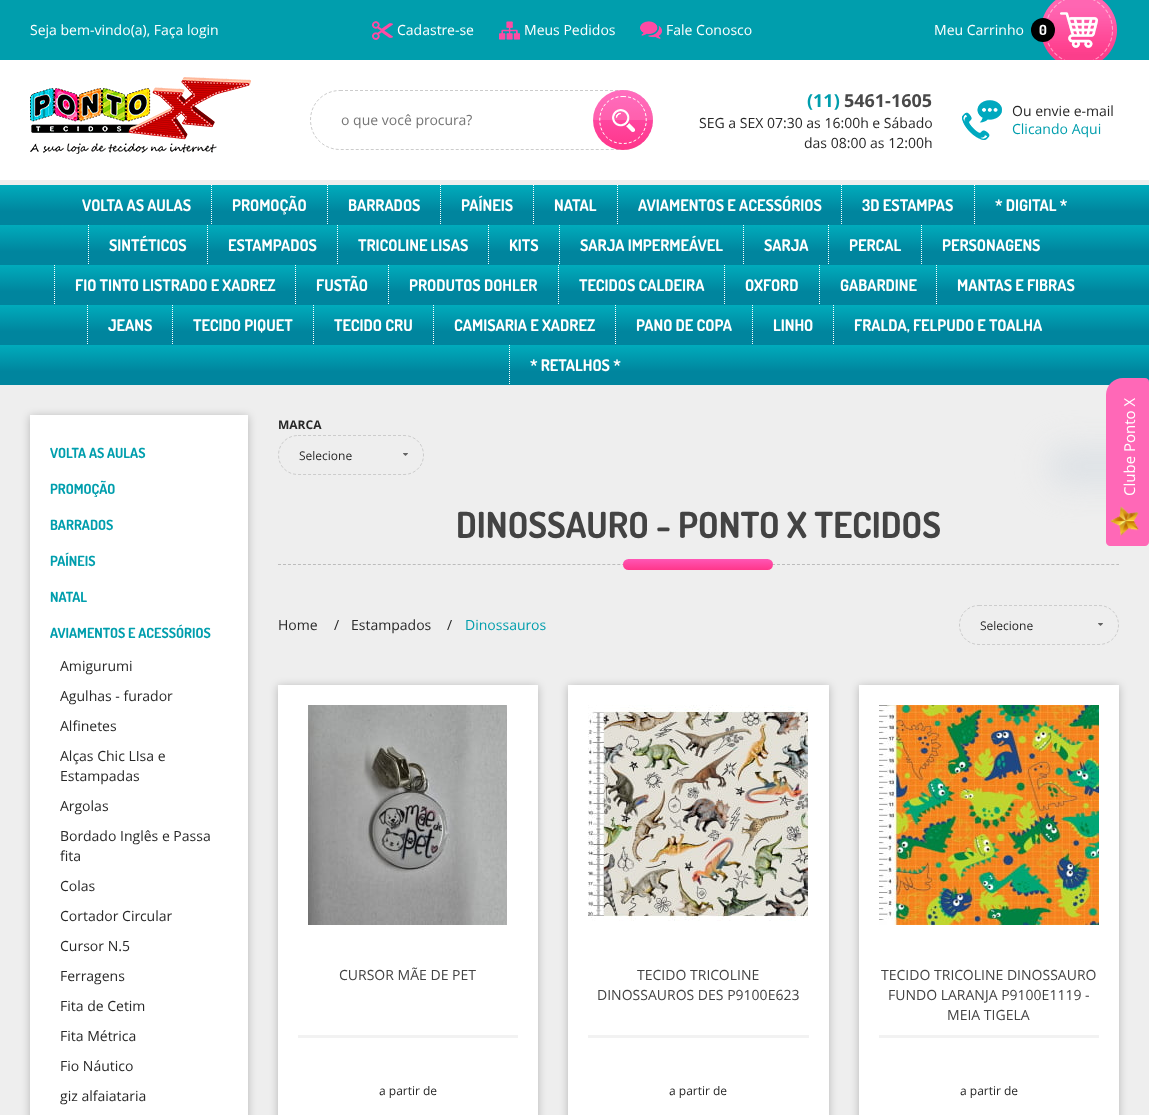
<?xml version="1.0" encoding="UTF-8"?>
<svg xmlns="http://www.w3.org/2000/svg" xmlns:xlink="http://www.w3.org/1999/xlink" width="1149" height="1115">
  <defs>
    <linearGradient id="g1" gradientUnits="userSpaceOnUse" x1="623" y1="90" x2="623" y2="150"><stop offset="0" stop-color="#ff56b5" /><stop offset="1" stop-color="#ff368a" /></linearGradient>
    <linearGradient id="g2" gradientUnits="userSpaceOnUse" x1="575" y1="185" x2="575" y2="225"><stop offset="0" stop-color="#00acbc" /><stop offset="0.66" stop-color="#00859e" /></linearGradient>
    <linearGradient id="g3" gradientUnits="userSpaceOnUse" x1="575" y1="225" x2="575" y2="265"><stop offset="0" stop-color="#00acbc" /><stop offset="0.66" stop-color="#00859e" /></linearGradient>
    <linearGradient id="g4" gradientUnits="userSpaceOnUse" x1="575" y1="265" x2="575" y2="305"><stop offset="0" stop-color="#00acbc" /><stop offset="0.66" stop-color="#00859e" /></linearGradient>
    <linearGradient id="g5" gradientUnits="userSpaceOnUse" x1="575" y1="305" x2="575" y2="345"><stop offset="0" stop-color="#00acbc" /><stop offset="0.66" stop-color="#00859e" /></linearGradient>
    <linearGradient id="g6" gradientUnits="userSpaceOnUse" x1="575" y1="345" x2="575" y2="385"><stop offset="0" stop-color="#00acbc" /><stop offset="0.66" stop-color="#00859e" /></linearGradient>
    <linearGradient id="g7" gradientUnits="userSpaceOnUse" x1="698" y1="559" x2="698" y2="570"><stop offset="0" stop-color="#ff56b5" /><stop offset="1" stop-color="#ff368a" /></linearGradient>
  </defs>
  <rect width="100%" height="100%" fill="#eeeeee" />
  <rect y="60" width="1149" height="120" fill="#ffffff" />
  <rect width="1149" height="60" fill="#009ead" />
  <image x="372" y="21" width="21" height="19" xlink:href="image1.png" />
  <image x="499" y="21" width="21" height="19" xlink:href="image2.png" />
  <image x="640" y="21" width="22" height="18" xlink:href="image3.png" />
  <image x="1042" y="0" width="75" height="60" xlink:href="image4.png" />
  <circle cx="1043" cy="30" r="12" fill="#000000" />
  <image x="30" y="77" width="221" height="77" xlink:href="image5.png" />
  <path d="M 340 90.5 h 283 c 16.5 0 29.5 13 29.5 29.5 c 0 16.5 -13 29.5 -29.5 29.5 h -283 c -16.5 0 -29.5 -13 -29.5 -29.5 c 0 -16.5 13 -29.5 29.5 -29.5 z" fill="none" stroke="#cccccc" stroke-dasharray="3 2" />
  <circle cx="623" cy="120" r="30" fill="url(#g1)" />
  <path d="M 623 90 c 16.5 0 30 13.5 30 30 h -60 c 0 -16.5 13.5 -30 30 -30 z" fill="#ffffff" fill-opacity="0.14" />
  <image x="612" y="109" width="23" height="23" xlink:href="image6.png" />
  <path d="M 623 96.5 c 31 0 31 47 0 47 c -31 0 -31 -47 0 -47 z" fill="none" stroke="#ffffff" stroke-dasharray="3 2" />
  <image x="962" y="100" width="40" height="40" xlink:href="image7.png" />
  <rect y="185" width="1149" height="40" fill="url(#g2)" />
  <rect y="225" width="1149" height="40" fill="url(#g3)" />
  <rect y="265" width="1149" height="40" fill="url(#g4)" />
  <rect y="305" width="1149" height="40" fill="url(#g5)" />
  <rect y="345" width="1149" height="40" fill="url(#g6)" />
  <path d="M 211.5 185 v 40" fill="none" stroke="#ffffff" stroke-dasharray="1 1" />
  <path d="M 327.5 185 v 40" fill="none" stroke="#ffffff" stroke-dasharray="1 1" />
  <path d="M 440.5 185 v 40" fill="none" stroke="#ffffff" stroke-dasharray="1 1" />
  <path d="M 533.5 185 v 40" fill="none" stroke="#ffffff" stroke-dasharray="1 1" />
  <path d="M 617.5 185 v 40" fill="none" stroke="#ffffff" stroke-dasharray="1 1" />
  <path d="M 841.5 185 v 40" fill="none" stroke="#ffffff" stroke-dasharray="1 1" />
  <path d="M 974.5 185 v 40" fill="none" stroke="#ffffff" stroke-dasharray="1 1" />
  <path d="M 88.5 225 v 40" fill="none" stroke="#ffffff" stroke-dasharray="1 1" />
  <path d="M 207.5 225 v 40" fill="none" stroke="#ffffff" stroke-dasharray="1 1" />
  <path d="M 337.5 225 v 40" fill="none" stroke="#ffffff" stroke-dasharray="1 1" />
  <path d="M 488.5 225 v 40" fill="none" stroke="#ffffff" stroke-dasharray="1 1" />
  <path d="M 559.5 225 v 40" fill="none" stroke="#ffffff" stroke-dasharray="1 1" />
  <path d="M 743.5 225 v 40" fill="none" stroke="#ffffff" stroke-dasharray="1 1" />
  <path d="M 828.5 225 v 40" fill="none" stroke="#ffffff" stroke-dasharray="1 1" />
  <path d="M 921.5 225 v 40" fill="none" stroke="#ffffff" stroke-dasharray="1 1" />
  <path d="M 54.5 265 v 40" fill="none" stroke="#ffffff" stroke-dasharray="1 1" />
  <path d="M 295.5 265 v 40" fill="none" stroke="#ffffff" stroke-dasharray="1 1" />
  <path d="M 388.5 265 v 40" fill="none" stroke="#ffffff" stroke-dasharray="1 1" />
  <path d="M 558.5 265 v 40" fill="none" stroke="#ffffff" stroke-dasharray="1 1" />
  <path d="M 724.5 265 v 40" fill="none" stroke="#ffffff" stroke-dasharray="1 1" />
  <path d="M 819.5 265 v 40" fill="none" stroke="#ffffff" stroke-dasharray="1 1" />
  <path d="M 936.5 265 v 40" fill="none" stroke="#ffffff" stroke-dasharray="1 1" />
  <path d="M 87.5 305 v 40" fill="none" stroke="#ffffff" stroke-dasharray="1 1" />
  <path d="M 172.5 305 v 40" fill="none" stroke="#ffffff" stroke-dasharray="1 1" />
  <path d="M 313.5 305 v 40" fill="none" stroke="#ffffff" stroke-dasharray="1 1" />
  <path d="M 433.5 305 v 40" fill="none" stroke="#ffffff" stroke-dasharray="1 1" />
  <path d="M 615.5 305 v 40" fill="none" stroke="#ffffff" stroke-dasharray="1 1" />
  <path d="M 752.5 305 v 40" fill="none" stroke="#ffffff" stroke-dasharray="1 1" />
  <path d="M 833.5 305 v 40" fill="none" stroke="#ffffff" stroke-dasharray="1 1" />
  <path d="M 509.5 345 v 40" fill="none" stroke="#ffffff" stroke-dasharray="1 1" />
  <rect x="30" y="416" width="218" height="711" fill="#000000" fill-opacity="0.23" filter="blur(4px)" />
  <rect x="30" y="415" width="218" height="700" fill="#ffffff" />
  <path d="M 298 435.5 h 106 c 11 0 19.5 8.5 19.5 19.5 c 0 11 -8.5 19.5 -19.5 19.5 h -106 c -11 0 -19.5 -8.5 -19.5 -19.5 c 0 -11 8.5 -19.5 19.5 -19.5 z" fill="none" stroke="#cccccc" stroke-dasharray="3 2" />
  <image x="403" y="453" width="5" height="3" xlink:href="image8.png" />
  <path d="M 278 564.5 h 841" fill="none" stroke="#bcbcbc" stroke-dasharray="3 1.99" />
  <rect x="623" y="559" width="150" height="11" rx="5.5" fill="url(#g7)" />
  <path d="M 979 605.5 h 120 c 11 0 19.5 8.5 19.5 19.5 c 0 11 -8.5 19.5 -19.5 19.5 h -120 c -11 0 -19.5 -8.5 -19.5 -19.5 c 0 -11 8.5 -19.5 19.5 -19.5 z" fill="none" stroke="#cccccc" stroke-dasharray="3 2" />
  <image x="1098" y="623" width="5" height="3" xlink:href="image8.png" />
  <rect x="278" y="686" width="260" height="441" fill="#000000" fill-opacity="0.23" filter="blur(4px)" />
  <rect x="278" y="685" width="260" height="430" fill="#ffffff" />
  <image x="308" y="705" width="199" height="220" xlink:href="image9.png" />
  <rect x="298" y="1035" width="220" height="3" fill="#f2f2f2" />
  <rect x="568" y="686" width="261" height="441" fill="#000000" fill-opacity="0.23" filter="blur(4px)" />
  <rect x="568" y="685" width="261" height="430" fill="#ffffff" />
  <image x="588" y="705" width="220" height="216" xlink:href="image10.png" />
  <rect x="588" y="1035" width="221" height="3" fill="#f2f2f2" />
  <rect x="859" y="686" width="260" height="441" fill="#000000" fill-opacity="0.23" filter="blur(4px)" />
  <rect x="859" y="685" width="260" height="430" fill="#ffffff" />
  <image x="879" y="705" width="220" height="220" xlink:href="image11.png" />
  <rect x="879" y="1035" width="220" height="3" fill="#f2f2f2" />
  <rect x="1049" y="446" width="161" height="41" rx="16" fill="#dee2e6" filter="blur(15px)" />
  <path d="M 1106 542 v -147 c 0 -10 8 -17 17 -17 h 22 c 2 0 4 1 4 4 v 160 c 0 2 -2 4 -4 4 h -35 c -2 0 -4 -2 -4 -4 z" fill="#ff68b7" />
  <image x="1110" y="506" width="29" height="30" xlink:href="image12.png" />
  <text x="30" y="35" style="font-family: Open Sans; font-size: 14px; fill: #ffffff">Seja bem-vindo(a), Faça login</text>
  <text x="397" y="35" style="font-family: Open Sans; font-size: 14px; fill: #ffffff">Cadastre-se</text>
  <text x="524" y="35" style="font-family: Open Sans; font-size: 14px; fill: #ffffff">Meus Pedidos</text>
  <text x="666" y="35" style="font-family: Open Sans; font-size: 14px; fill: #ffffff">Fale Conosco</text>
  <text x="934" y="35" style="font-family: Open Sans; font-size: 14px; fill: #ffffff">Meu Carrinho</text>
  <text x="1039" y="35" style="font-family: Dosis; font-size: 14px; font-weight: bold; fill: #ffffff">0</text>
  <text x="341" y="125" style="font-family: Open Sans; font-size: 14px; fill: #757575">o que você procura?</text>
  <text x="807" y="107" style="font-family: Open Sans; font-size: 18px; font-weight: bold; fill: #009ead">(11)</text>
  <text x="844" y="107" style="font-family: Open Sans; font-size: 18px; font-weight: bold; fill: #494949">5461-1605</text>
  <text x="699" y="128" style="font-family: Open Sans; font-size: 14px; fill: #272727">SEG a SEX 07:30 as 16:00h e Sábado</text>
  <text x="804" y="148" style="font-family: Open Sans; font-size: 14px; fill: #272727">das 08:00 as 12:00h</text>
  <text x="1012" y="116" style="font-family: Open Sans; font-size: 14px; fill: #272727">Ou envie e-mail</text>
  <text x="1012" y="134" style="font-family: Open Sans; font-size: 14px; fill: #009ead">Clicando Aqui</text>
  <text x="82" y="211" style="font-family: Dosis; font-size: 16px; font-weight: bold; fill: #ffffff">VOLTA AS AULAS</text>
  <text x="232" y="211" style="font-family: Dosis; font-size: 16px; font-weight: bold; fill: #ffffff">PROMOÇÃO</text>
  <text x="348" y="211" style="font-family: Dosis; font-size: 16px; font-weight: bold; fill: #ffffff">BARRADOS</text>
  <text x="461" y="211" style="font-family: Dosis; font-size: 16px; font-weight: bold; fill: #ffffff">PAÍNEIS</text>
  <text x="554" y="211" style="font-family: Dosis; font-size: 16px; font-weight: bold; fill: #ffffff">NATAL</text>
  <text x="638" y="211" style="font-family: Dosis; font-size: 16px; font-weight: bold; fill: #ffffff">AVIAMENTOS E ACESSÓRIOS</text>
  <text x="862" y="211" style="font-family: Dosis; font-size: 16px; font-weight: bold; fill: #ffffff">3D ESTAMPAS</text>
  <text x="995" y="211" style="font-family: Dosis; font-size: 16px; font-weight: bold; fill: #ffffff">* DIGITAL *</text>
  <text x="109" y="251" style="font-family: Dosis; font-size: 16px; font-weight: bold; fill: #ffffff">SINTÉTICOS</text>
  <text x="228" y="251" style="font-family: Dosis; font-size: 16px; font-weight: bold; fill: #ffffff">ESTAMPADOS</text>
  <text x="358" y="251" style="font-family: Dosis; font-size: 16px; font-weight: bold; fill: #ffffff">TRICOLINE LISAS</text>
  <text x="509" y="251" style="font-family: Dosis; font-size: 16px; font-weight: bold; fill: #ffffff">KITS</text>
  <text x="580" y="251" style="font-family: Dosis; font-size: 16px; font-weight: bold; fill: #ffffff">SARJA IMPERMEÁVEL</text>
  <text x="764" y="251" style="font-family: Dosis; font-size: 16px; font-weight: bold; fill: #ffffff">SARJA</text>
  <text x="849" y="251" style="font-family: Dosis; font-size: 16px; font-weight: bold; fill: #ffffff">PERCAL</text>
  <text x="942" y="251" style="font-family: Dosis; font-size: 16px; font-weight: bold; fill: #ffffff">PERSONAGENS</text>
  <text x="75" y="291" style="font-family: Dosis; font-size: 16px; font-weight: bold; fill: #ffffff">FIO TINTO LISTRADO E XADREZ</text>
  <text x="316" y="291" style="font-family: Dosis; font-size: 16px; font-weight: bold; fill: #ffffff">FUSTÃO</text>
  <text x="409" y="291" style="font-family: Dosis; font-size: 16px; font-weight: bold; fill: #ffffff">PRODUTOS DOHLER</text>
  <text x="579" y="291" style="font-family: Dosis; font-size: 16px; font-weight: bold; fill: #ffffff">TECIDOS CALDEIRA</text>
  <text x="745" y="291" style="font-family: Dosis; font-size: 16px; font-weight: bold; fill: #ffffff">OXFORD</text>
  <text x="840" y="291" style="font-family: Dosis; font-size: 16px; font-weight: bold; fill: #ffffff">GABARDINE</text>
  <text x="957" y="291" style="font-family: Dosis; font-size: 16px; font-weight: bold; fill: #ffffff">MANTAS E FIBRAS</text>
  <text x="108" y="331" style="font-family: Dosis; font-size: 16px; font-weight: bold; fill: #ffffff">JEANS</text>
  <text x="193" y="331" style="font-family: Dosis; font-size: 16px; font-weight: bold; fill: #ffffff">TECIDO PIQUET</text>
  <text x="334" y="331" style="font-family: Dosis; font-size: 16px; font-weight: bold; fill: #ffffff">TECIDO CRU</text>
  <text x="454" y="331" style="font-family: Dosis; font-size: 16px; font-weight: bold; fill: #ffffff">CAMISARIA E XADREZ</text>
  <text x="636" y="331" style="font-family: Dosis; font-size: 16px; font-weight: bold; fill: #ffffff">PANO DE COPA</text>
  <text x="773" y="331" style="font-family: Dosis; font-size: 16px; font-weight: bold; fill: #ffffff">LINHO</text>
  <text x="854" y="331" style="font-family: Dosis; font-size: 16px; font-weight: bold; fill: #ffffff">FRALDA, FELPUDO E TOALHA</text>
  <text x="530" y="371" style="font-family: Dosis; font-size: 16px; font-weight: bold; fill: #ffffff">* RETALHOS *</text>
  <text x="50" y="458" style="font-family: Dosis; font-size: 14px; font-weight: bold; fill: #009ead">VOLTA AS AULAS</text>
  <text x="50" y="494" style="font-family: Dosis; font-size: 14px; font-weight: bold; fill: #009ead">PROMOÇÃO</text>
  <text x="50" y="530" style="font-family: Dosis; font-size: 14px; font-weight: bold; fill: #009ead">BARRADOS</text>
  <text x="50" y="566" style="font-family: Dosis; font-size: 14px; font-weight: bold; fill: #009ead">PAÍNEIS</text>
  <text x="50" y="602" style="font-family: Dosis; font-size: 14px; font-weight: bold; fill: #009ead">NATAL</text>
  <text x="50" y="638" style="font-family: Dosis; font-size: 14px; font-weight: bold; fill: #009ead">AVIAMENTOS E ACESSÓRIOS</text>
  <text x="60" y="671" style="font-family: Open Sans; font-size: 14px; fill: #272727">Amigurumi</text>
  <text x="60" y="701" style="font-family: Open Sans; font-size: 14px; fill: #272727">Agulhas - furador</text>
  <text x="60" y="731" style="font-family: Open Sans; font-size: 14px; fill: #272727">Alfinetes</text>
  <text x="60" y="761" style="font-family: Open Sans; font-size: 14px; fill: #272727">Alças Chic LIsa e</text>
  <text x="60" y="781" style="font-family: Open Sans; font-size: 14px; fill: #272727">Estampadas</text>
  <text x="60" y="811" style="font-family: Open Sans; font-size: 14px; fill: #272727">Argolas</text>
  <text x="60" y="841" style="font-family: Open Sans; font-size: 14px; fill: #272727">Bordado Inglês e Passa</text>
  <text x="60" y="861" style="font-family: Open Sans; font-size: 14px; fill: #272727">fita</text>
  <text x="60" y="891" style="font-family: Open Sans; font-size: 14px; fill: #272727">Colas</text>
  <text x="60" y="921" style="font-family: Open Sans; font-size: 14px; fill: #272727">Cortador Circular</text>
  <text x="60" y="951" style="font-family: Open Sans; font-size: 14px; fill: #272727">Cursor N.5</text>
  <text x="60" y="981" style="font-family: Open Sans; font-size: 14px; fill: #272727">Ferragens</text>
  <text x="60" y="1011" style="font-family: Open Sans; font-size: 14px; fill: #272727">Fita de Cetim</text>
  <text x="60" y="1041" style="font-family: Open Sans; font-size: 14px; fill: #272727">Fita Métrica</text>
  <text x="60" y="1071" style="font-family: Open Sans; font-size: 14px; fill: #272727">Fio Náutico</text>
  <text x="60" y="1101" style="font-family: Open Sans; font-size: 14px; fill: #272727">giz alfaiataria</text>
  <text x="278" y="429" style="font-family: Open Sans; font-size: 12px; font-weight: bold; fill: #272727">MARCA</text>
  <text x="299" y="460" style="font-family: Open Sans; font-size: 12px; fill: #272727">Selecione</text>
  <text x="456" y="538" style="font-family: Dosis; font-size: 36px; font-weight: bold; fill: #434343">DINOSSAURO - PONTO X TECIDOS</text>
  <text x="278" y="630" style="font-family: Open Sans; font-size: 14px; fill: #272727">Home</text>
  <text x="334" y="630" style="font-family: Open Sans; font-size: 14px; fill: #272727">/</text>
  <text x="351" y="630" style="font-family: Open Sans; font-size: 14px; fill: #272727">Estampados</text>
  <text x="447" y="630" style="font-family: Open Sans; font-size: 14px; fill: #272727">/</text>
  <text x="465" y="630" style="font-family: Open Sans; font-size: 14px; fill: #009ead">Dinossauros</text>
  <text x="980" y="630" style="font-family: Open Sans; font-size: 12px; fill: #272727">Selecione</text>
  <text x="339" y="980" style="font-family: Open Sans; font-size: 14px; fill: #434343">CURSOR MÃE DE PET</text>
  <text x="379" y="1095" style="font-family: Open Sans; font-size: 12px; fill: #272727">a partir de</text>
  <text x="637" y="980" style="font-family: Open Sans; font-size: 14px; fill: #434343">TECIDO TRICOLINE</text>
  <text x="597" y="1000" style="font-family: Open Sans; font-size: 14px; fill: #434343">DINOSSAUROS DES P9100E623</text>
  <text x="669" y="1095" style="font-family: Open Sans; font-size: 12px; fill: #272727">a partir de</text>
  <text x="881" y="980" style="font-family: Open Sans; font-size: 14px; fill: #434343">TECIDO TRICOLINE DINOSSAURO</text>
  <text x="888" y="1000" style="font-family: Open Sans; font-size: 14px; fill: #434343">FUNDO LARANJA P9100E1119 -</text>
  <text x="947" y="1020" style="font-family: Open Sans; font-size: 14px; fill: #434343">MEIA TIGELA</text>
  <text x="960" y="1095" style="font-family: Open Sans; font-size: 12px; fill: #272727">a partir de</text>
  <text x="1135" y="496" transform="rotate(-90 1135 496)" style="font-family: Open Sans; font-size: 15px; fill: #ffffff">Clube Ponto X</text>
</svg>
